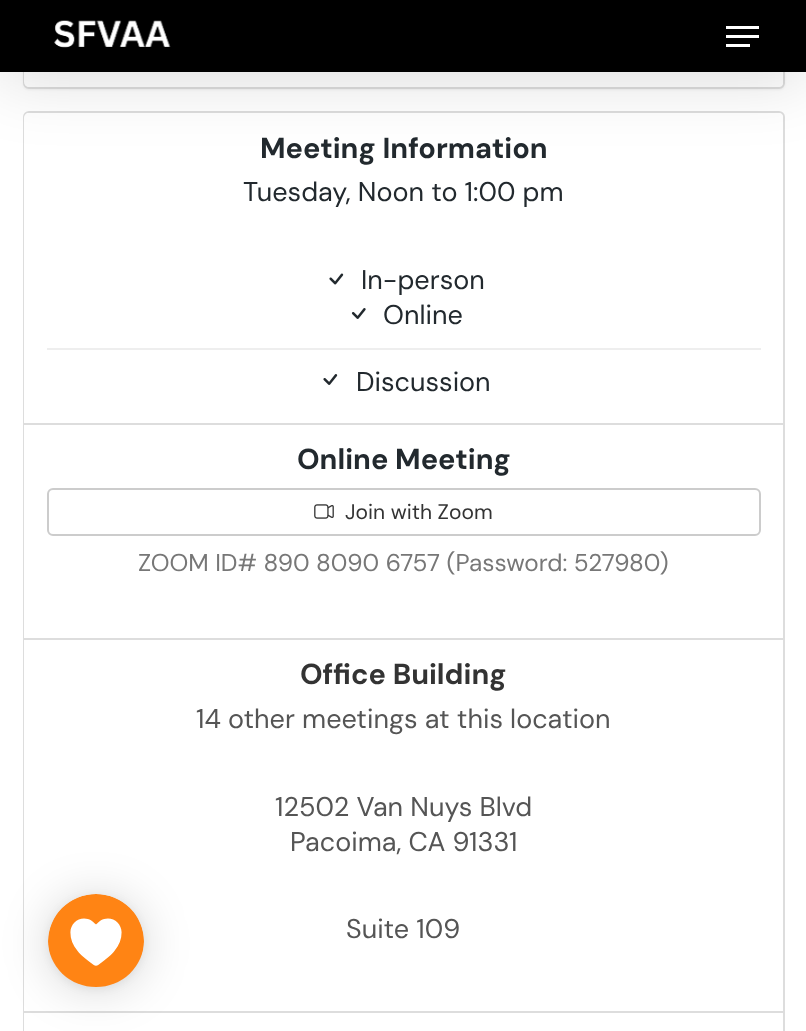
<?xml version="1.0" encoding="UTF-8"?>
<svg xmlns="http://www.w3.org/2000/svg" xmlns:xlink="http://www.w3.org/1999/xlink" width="806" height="1031">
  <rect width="100%" height="100%" fill="#ffffff" />
  <rect x="24" y="112" width="760" height="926" rx="5" fill="none" stroke="#dddddd" stroke-width="2" />
  <rect x="24" y="640" width="1" height="371" fill="#ffffff" />
  <rect x="24" y="1013" width="1" height="18" fill="#ffffff" />
  <rect x="24" y="1011" width="759" height="2" fill="#dddddd" />
  <rect x="48" y="897" width="96" height="93" rx="46.5" fill="#000000" fill-opacity="0.16" filter="blur(24px)" />
  <rect x="48" y="896" width="96" height="93" rx="46.5" fill="#000000" fill-opacity="0.06" filter="blur(4.5px)" />
  <image x="48" y="894" width="96" height="93" xlink:href="image1.png" />
  <rect x="23" y="30" width="762" height="60" rx="6" fill="#000000" fill-opacity="0.05" filter="blur(1px)" />
  <rect x="24" y="30" width="760" height="58" rx="5" fill="#ffffff" stroke="#dddddd" stroke-width="2" />
  <rect x="24" y="30" width="759" height="57" rx="5" fill="#ffffff" />
  <path d="M 29 113 h 749 c 3 0 5 2 5 5 v 307 h -759 v -307 c 0 -3 2 -5 5 -5 z" fill="#ffffff" />
  <rect y="5" width="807" height="72" fill="#000000" fill-opacity="0.15" filter="blur(34px)" />
  <rect width="806" height="72" fill="#000000" />
  <image x="54" y="20" width="117" height="28" xlink:href="image2.png" />
  <rect x="726" y="26" width="33" height="3" fill="#ffffff" />
  <rect x="726" y="44" width="24" height="3" fill="#ffffff" />
  <rect x="726" y="35" width="33" height="3" fill="#ffffff" />
  <rect x="24" y="423" width="759" height="2" fill="#dddddd" />
  <image x="329" y="273" width="15" height="12" xlink:href="image3.png" />
  <image x="351" y="308" width="15" height="11" xlink:href="image4.png" />
  <rect x="47" y="348" width="714" height="2" fill="#eeeeee" />
  <image x="323" y="374" width="15" height="11" xlink:href="image5.png" />
  <rect x="24" y="425" width="1" height="213" fill="#ffffff" />
  <rect x="48" y="489" width="712" height="46" rx="5" fill="none" stroke="#cccccc" stroke-width="2" />
  <image x="314" y="504" width="20" height="15" xlink:href="image6.png" />
  <rect x="24" y="638" width="759" height="2" fill="#dddddd" />
  <text x="260" y="158" style="font-family: DM Sans; font-size: 28.9px; font-weight: bold; fill: #22292e">Meeting Information</text>
  <text x="243" y="201" style="font-family: DM Sans; font-size: 27px; fill: #22292e">Tuesday, Noon to 1:00 pm</text>
  <text x="361" y="289" style="font-family: DM Sans; font-size: 27px; fill: #22292e">In-person</text>
  <text x="383" y="324" style="font-family: DM Sans; font-size: 27px; fill: #22292e">Online</text>
  <text x="356" y="391" style="font-family: DM Sans; font-size: 27px; fill: #22292e">Discussion</text>
  <text x="297" y="469" style="font-family: DM Sans; font-size: 28.9px; font-weight: bold; fill: #22292e">Online Meeting</text>
  <text x="345" y="519" style="font-family: DM Sans; font-size: 21px; fill: #333333">Join with Zoom</text>
  <text x="138" y="571" style="font-family: DM Sans; font-size: 24.3px; fill: #777777">ZOOM ID# 890 8090 6757 (Password: 527980)</text>
  <text x="300" y="684" style="font-family: DM Sans; font-size: 28.9px; font-weight: bold; fill: #333333">Office Building</text>
  <text x="196" y="728" style="font-family: DM Sans; font-size: 27px; fill: #555555">14 other meetings at this location</text>
  <text x="275" y="816" style="font-family: DM Sans; font-size: 27px; fill: #555555">12502 Van Nuys Blvd</text>
  <text x="290" y="851" style="font-family: DM Sans; font-size: 27px; fill: #555555">Pacoima, CA 91331</text>
  <text x="346" y="938" style="font-family: DM Sans; font-size: 27px; fill: #555555">Suite 109</text>
</svg>
